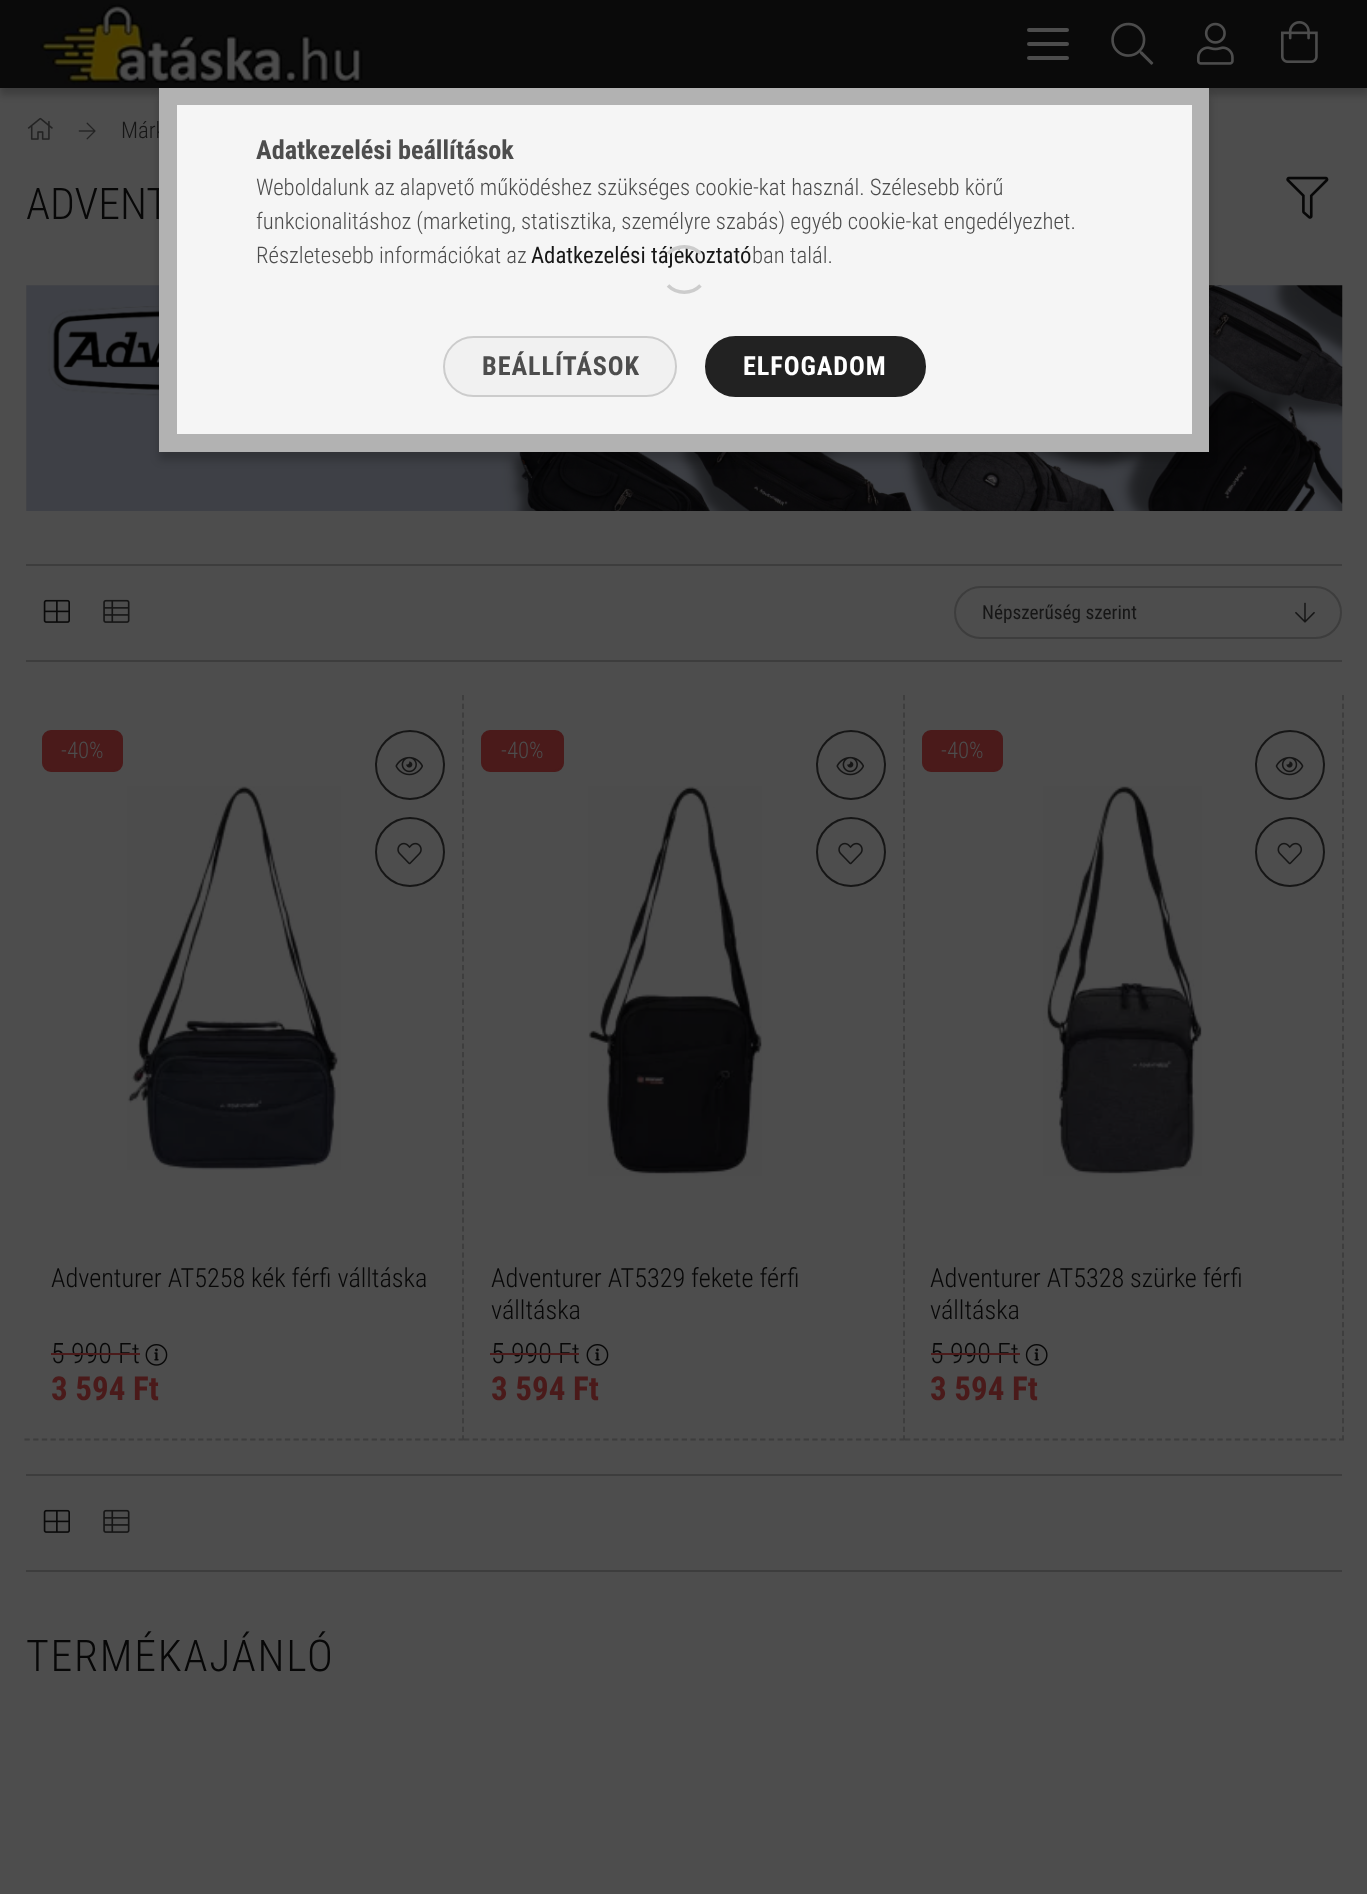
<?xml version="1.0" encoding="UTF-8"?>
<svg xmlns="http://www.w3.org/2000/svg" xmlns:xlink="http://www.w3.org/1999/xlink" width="1367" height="1894">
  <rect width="100%" height="100%" fill="#4d4d4d" />
  <rect y="7" width="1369" height="88" fill="#000000" fill-opacity="0.2" filter="blur(3.5px)" />
  <rect width="1367" height="88" fill="#0a0a0a" />
  <image x="40" y="3" width="323" height="82" xlink:href="image1.png" />
  <rect x="1027" y="28" width="42" height="4" rx="2" fill="#4d4d4d" />
  <rect x="1027" y="42" width="42" height="4" rx="2" fill="#4d4d4d" />
  <rect x="1027" y="56" width="42" height="4" rx="2" fill="#4d4d4d" />
  <image x="1111" y="22" width="43" height="43" xlink:href="image2.png" />
  <image x="1197" y="22" width="37" height="43" xlink:href="image3.png" />
  <image x="1281" y="21" width="37" height="42" xlink:href="image4.png" />
  <image x="27" y="117" width="26" height="23" xlink:href="image5.png" />
  <image x="78" y="122" width="18" height="18" xlink:href="image6.png" />
  <image x="1286" y="176" width="43" height="43" xlink:href="image7.png" />
  <image x="26" y="285" width="1317" height="226" xlink:href="image8.png" />
  <rect x="26" y="564" width="1316" height="2" fill="#3d3d3d" />
  <rect x="26" y="660" width="1316" height="2" fill="#3d3d3d" />
  <image x="43" y="599" width="27" height="24" xlink:href="image9.png" />
  <image x="103" y="599" width="27" height="24" xlink:href="image10.png" />
  <rect x="955" y="587" width="386" height="51" rx="25.5" fill="none" stroke="#3d3d3d" stroke-width="2" />
  <image x="1295" y="602" width="20" height="21" xlink:href="image11.png" />
  <path d="M 463 695 v 745" fill="none" stroke="#3d3d3d" stroke-width="1.8" stroke-dasharray="5.25 3.46" />
  <path d="M 24.5 1439.5 h 439.5" fill="none" stroke="#3d3d3d" stroke-width="1.8" stroke-dasharray="5.25 3.43" />
  <rect x="43" y="731" width="79" height="40" rx="8" fill="#4a1a1a" stroke="#4a1a1a" stroke-width="2" />
  <circle cx="410" cy="765" r="34" fill="none" stroke="#161616" stroke-width="2" />
  <image x="395" y="756" width="28" height="20" xlink:href="image12.png" />
  <circle cx="410" cy="852" r="34" fill="none" stroke="#161616" stroke-width="2" />
  <image x="397" y="842" width="25" height="23" xlink:href="image13.png" />
  <image x="127" y="786" width="214" height="384" xlink:href="image14.png" />
  <image x="145" y="1344" width="23" height="22" xlink:href="image15.png" />
  <path d="M 904 695 v 745" fill="none" stroke="#3d3d3d" stroke-width="1.8" stroke-dasharray="5.25 3.46" />
  <path d="M 464 1439.5 h 441" fill="none" stroke="#3d3d3d" stroke-width="1.8" stroke-dasharray="5.25 3.46" />
  <rect x="482" y="731" width="81" height="40" rx="8" fill="#4a1a1a" stroke="#4a1a1a" stroke-width="2" />
  <circle cx="851" cy="765" r="34" fill="none" stroke="#161616" stroke-width="2" />
  <image x="836" y="756" width="28" height="20" xlink:href="image12.png" />
  <circle cx="851" cy="852" r="34" fill="none" stroke="#161616" stroke-width="2" />
  <image x="838" y="842" width="25" height="23" xlink:href="image13.png" />
  <image x="588" y="786" width="174" height="390" xlink:href="image16.png" />
  <image x="586" y="1344" width="23" height="22" xlink:href="image15.png" />
  <path d="M 1343 695 v 745" fill="none" stroke="#3d3d3d" stroke-width="1.8" stroke-dasharray="5.25 3.46" />
  <path d="M 905 1439.5 h 439" fill="none" stroke="#3d3d3d" stroke-width="1.8" stroke-dasharray="5.25 3.43" />
  <rect x="923" y="731" width="79" height="40" rx="8" fill="#4a1a1a" stroke="#4a1a1a" stroke-width="2" />
  <circle cx="1290" cy="765" r="34" fill="none" stroke="#161616" stroke-width="2" />
  <image x="1275" y="756" width="29" height="20" xlink:href="image17.png" />
  <circle cx="1290" cy="852" r="34" fill="none" stroke="#161616" stroke-width="2" />
  <image x="1277" y="842" width="26" height="23" xlink:href="image18.png" />
  <image x="1043" y="786" width="159" height="390" xlink:href="image19.png" />
  <image x="1025" y="1344" width="23" height="22" xlink:href="image20.png" />
  <rect x="26" y="1474" width="1316" height="2" fill="#3d3d3d" />
  <rect x="26" y="1570" width="1316" height="2" fill="#3d3d3d" />
  <image x="43" y="1509" width="27" height="24" xlink:href="image9.png" />
  <image x="103" y="1509" width="27" height="24" xlink:href="image10.png" />
  <rect x="159" y="96" width="1050" height="364" fill="#000000" fill-opacity="0.2" filter="blur(4.5px)" />
  <text x="121" y="138" style="font-family: Roboto Condensed; font-size: 22.75px; font-weight: 300; fill: #161616">Márk</text>
  <text x="26" y="219" style="font-family: Roboto Condensed; font-size: 43.75px; font-weight: 300; fill: #070707">ADVENT</text>
  <text x="982" y="619" style="font-family: Roboto Condensed; font-size: 19.25px; fill: #161616">Népszerűség szerint</text>
  <text x="61" y="758" style="font-family: Roboto Condensed; font-size: 22.75px; font-weight: 300; fill: #4d4d4d">-40%</text>
  <text x="51" y="1287" style="font-family: Roboto Condensed; font-size: 26.25px; font-weight: 300; fill: #070707">Adventurer AT5258 kék férfi válltáska</text>
  <text x="51" y="1363" style="font-family: Roboto Condensed; font-size: 28px; font-weight: 300; fill: #070707">5 990 Ft</text>
  <rect x="51" y="1353" width="89" height="2" fill="#4a1a1a" />
  <text x="51" y="1400" style="font-family: Roboto Condensed; font-size: 33px; font-weight: bold; fill: #4a1a1a">3 594 Ft</text>
  <text x="501" y="758" style="font-family: Roboto Condensed; font-size: 22.75px; font-weight: 300; fill: #4d4d4d">-40%</text>
  <text x="491" y="1287" style="font-family: Roboto Condensed; font-size: 26.25px; font-weight: 300; fill: #070707">Adventurer AT5329 fekete férfi</text>
  <text x="491" y="1319" style="font-family: Roboto Condensed; font-size: 26.25px; font-weight: 300; fill: #070707">válltáska</text>
  <text x="491" y="1363" style="font-family: Roboto Condensed; font-size: 28px; font-weight: 300; fill: #070707">5 990 Ft</text>
  <rect x="490" y="1353" width="89" height="2" fill="#4a1a1a" />
  <text x="491" y="1400" style="font-family: Roboto Condensed; font-size: 33px; font-weight: bold; fill: #4a1a1a">3 594 Ft</text>
  <text x="941" y="758" style="font-family: Roboto Condensed; font-size: 22.75px; font-weight: 300; fill: #4d4d4d">-40%</text>
  <text x="930" y="1287" style="font-family: Roboto Condensed; font-size: 26.25px; font-weight: 300; fill: #070707">Adventurer AT5328 szürke férfi</text>
  <text x="930" y="1319" style="font-family: Roboto Condensed; font-size: 26.25px; font-weight: 300; fill: #070707">válltáska</text>
  <text x="930" y="1363" style="font-family: Roboto Condensed; font-size: 28px; font-weight: 300; fill: #070707">5 990 Ft</text>
  <rect x="931" y="1353" width="89" height="2" fill="#4a1a1a" />
  <text x="930" y="1400" style="font-family: Roboto Condensed; font-size: 33px; font-weight: bold; fill: #4a1a1a">3 594 Ft</text>
  <text x="26" y="1671" style="font-family: Roboto Condensed; font-size: 43.75px; font-weight: 300; letter-spacing: 1.75px; fill: #070707">TERMÉKAJÁNLÓ</text>
  <rect x="168" y="97" width="1032" height="346" fill="none" stroke="#b2b2b2" stroke-width="18" />
  <rect x="177" y="105" width="1015" height="329" fill="#f5f5f5" />
  <text x="256" y="159" style="font-family: Roboto Condensed; font-size: 26.25px; font-weight: bold; fill: #4d4d4d">Adatkezelési beállítások</text>
  <text x="256" y="195" style="font-family: Roboto Condensed; font-size: 22.75px; font-weight: 300; fill: #4d4d4d">Weboldalunk az alapvető működéshez szükséges cookie-kat használ. Szélesebb körű</text>
  <text x="256" y="229" style="font-family: Roboto Condensed; font-size: 22.75px; font-weight: 300; fill: #4d4d4d">funkcionalitáshoz (marketing, statisztika, személyre szabás) egyéb cookie-kat engedélyezhet.</text>
  <text x="256" y="263" style="font-family: Roboto Condensed; font-size: 22.75px; font-weight: 300; fill: #4d4d4d">Részletesebb információkat az</text>
  <text x="531" y="263" style="font-family: Roboto Condensed; font-size: 22.75px; fill: #161616">Adatkezelési tájékoztató</text>
  <text x="752" y="263" style="font-family: Roboto Condensed; font-size: 22.75px; font-weight: 300; fill: #4d4d4d">ban talál.</text>
  <rect x="444" y="337" width="232" height="59" rx="29.5" fill="#f1f1f1" stroke="#cccccc" stroke-width="2" />
  <text x="482" y="375" style="font-family: Roboto Condensed; font-size: 26.25px; font-weight: bold; letter-spacing: 0.9px; fill: #4d4d4d">BEÁLLÍTÁSOK</text>
  <rect x="706" y="337" width="219" height="59" rx="29.5" fill="#222222" stroke="#222222" stroke-width="2" />
  <text x="743" y="375" style="font-family: Roboto Condensed; font-size: 26.25px; font-weight: bold; letter-spacing: 0.9px; fill: #ffffff">ELFOGADOM</text>
  <path d="M 668 253.5 c 9 -9 23.5 -9 32.5 0 m 0 32 c -9 9 -23.5 9 -32.5 0" fill="none" stroke="#cccccc" stroke-width="3.5" />
</svg>
